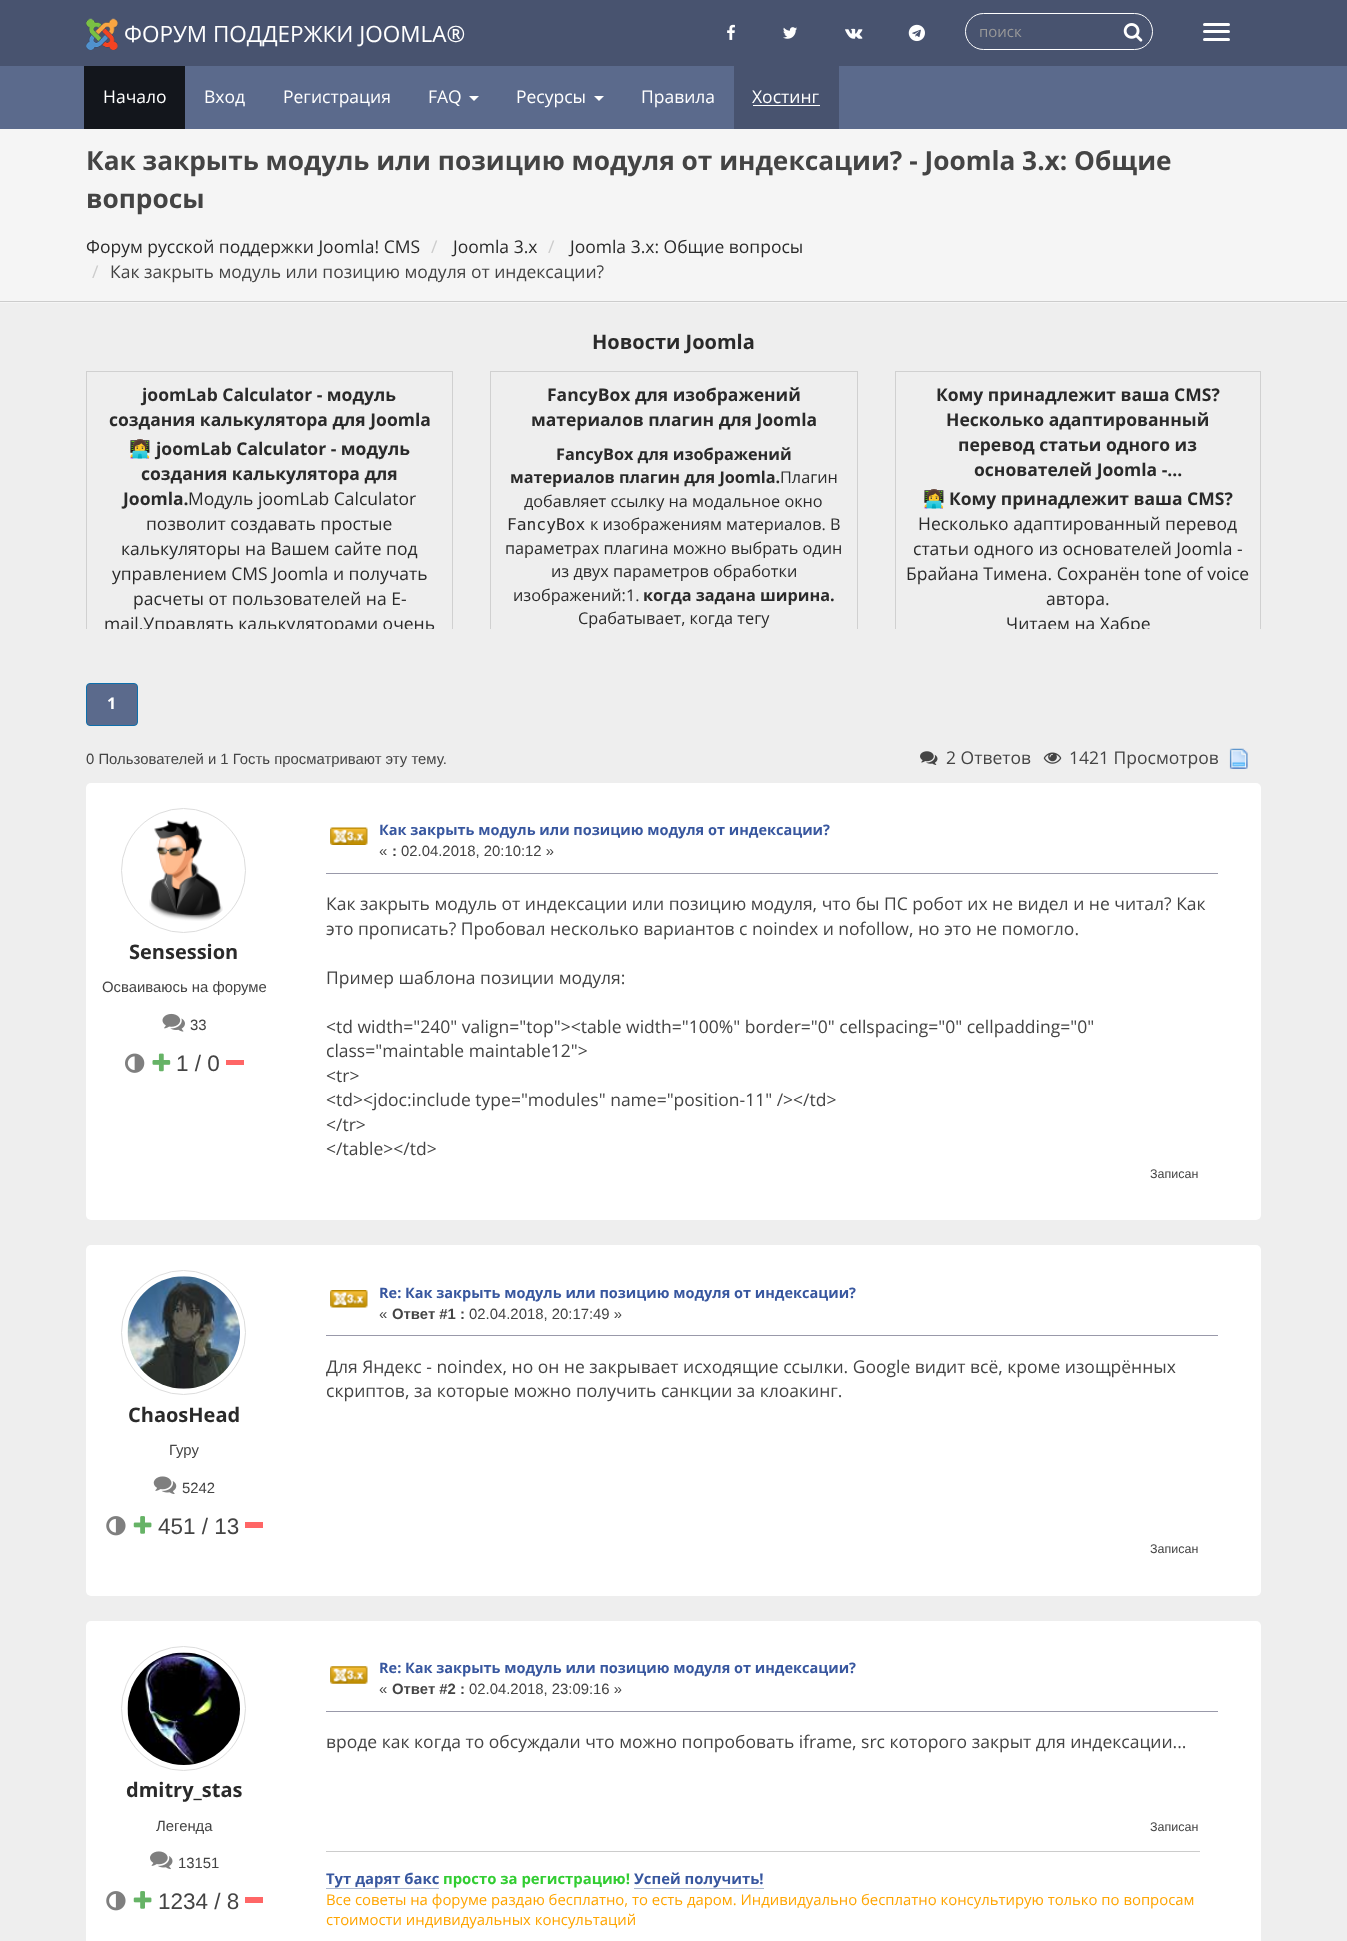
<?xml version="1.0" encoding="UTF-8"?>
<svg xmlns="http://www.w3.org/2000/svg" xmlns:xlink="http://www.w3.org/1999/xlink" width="1347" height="1941">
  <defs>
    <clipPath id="clip1"><rect x="471" y="366" width="405" height="263" /></clipPath>
    <clipPath id="clip2"><rect x="876" y="366" width="404" height="263" /></clipPath>
    <clipPath id="clip3"><rect x="68" y="366" width="403" height="263" /></clipPath>
    <clipPath id="clip4"><rect x="326" y="1334" width="892" height="74" /></clipPath>
  </defs>
  <rect width="100%" height="100%" fill="#eeeeee" />
  <rect width="1347" height="66" fill="#48536f" />
  <image x="86" y="18" width="32" height="32" xlink:href="image1.png" />
  <image x="727" y="24" width="8" height="16" xlink:href="image2.png" />
  <image x="783" y="27" width="14" height="12" xlink:href="image3.png" />
  <image x="845" y="28" width="18" height="11" xlink:href="image4.png" />
  <image x="908" y="24" width="17" height="18" xlink:href="image5.png" />
  <rect x="965.5" y="13.5" width="187" height="36" rx="18" fill="none" stroke="#ffffff" />
  <image x="1123" y="23" width="20" height="19" xlink:href="image6.png" />
  <rect x="1203" y="23" width="27" height="3" rx="1.5" fill="#ffffff" />
  <rect x="1203" y="30" width="27" height="3" rx="1.5" fill="#ffffff" />
  <rect x="1203" y="38" width="27" height="3" rx="1.5" fill="#ffffff" />
  <rect y="66" width="1347" height="63" fill="#5b6a8c" />
  <rect x="84" y="66" width="101" height="63" fill="#13161c" />
  <path d="M 469 96 h 10 l -5 5 z" fill="#ffffff" />
  <path d="M 594 96 h 10 l -5 5 z" fill="#ffffff" />
  <rect x="734" y="66" width="105" height="63" fill="#48536f" />
  <rect x="753" y="105" width="67" height="1" fill="#ffffff" />
  <rect y="129" width="1347" height="174" fill="#f5f5f5" />
  <rect y="301" width="1347" height="1" fill="#cccccc" />
  <rect x="86" y="783" width="1175" height="437" rx="5" fill="#ffffff" />
  <rect x="86" y="1245" width="1175" height="351" rx="5" fill="#ffffff" />
  <g clip-path="url(#clip1)">
    <rect x="490.5" y="371.5" width="367" height="929" fill="none" stroke="#d0d0d0" />
  </g>
  <g clip-path="url(#clip2)">
    <rect x="895.5" y="371.5" width="365" height="332" fill="none" stroke="#d0d0d0" />
  </g>
  <rect x="86.5" y="683.5" width="51" height="42" rx="3.5" fill="#5b6a8c" stroke="#0d6fac" />
  <image x="920" y="751" width="18" height="14" xlink:href="image7.png" />
  <image x="1043" y="752" width="19" height="12" xlink:href="image8.png" />
  <image x="1229" y="748" width="19" height="21" xlink:href="image9.png" />
  <circle cx="183.5" cy="1332.5" r="62" fill="none" stroke="#dddddd" />
  <image x="127" y="1276" width="113" height="113" xlink:href="image15.png" />
  <image x="153" y="1476" width="24" height="18" xlink:href="image16.png" />
  <image x="106" y="1516" width="20" height="20" xlink:href="image17.png" />
  <image x="133" y="1516" width="19" height="18" xlink:href="image18.png" />
  <rect x="245" y="1522" width="18" height="6" fill="#ff6666" />
  <image x="330" y="1290" width="38" height="18" xlink:href="image19.png" />
  <rect x="326" y="1335" width="892" height="1" fill="#9999aa" />
  <rect x="86" y="1621" width="1175" height="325" rx="5" fill="#ffffff" />
  <circle cx="183.5" cy="1708.5" r="62" fill="none" stroke="#dddddd" />
  <image x="127" y="1652" width="113" height="113" xlink:href="image20.png" />
  <image x="150" y="1851" width="23" height="19" xlink:href="image21.png" />
  <image x="106" y="1891" width="20" height="20" xlink:href="image17.png" />
  <image x="133" y="1891" width="19" height="18" xlink:href="image18.png" />
  <rect x="245" y="1897" width="18" height="6" fill="#ff6666" />
  <image x="330" y="1666" width="38" height="18" xlink:href="image22.png" />
  <rect x="326" y="1711" width="892" height="1" fill="#9999aa" />
  <rect x="326" y="1851" width="874" height="1" fill="#cccccc" />
  <rect x="326" y="1888" width="113" height="1" fill="#a8b6cf" />
  <rect x="634" y="1888" width="130" height="1" fill="#a8b6cf" />
  <text x="124" y="42" style="font-family: Open Sans; font-size: 22.5px; fill: #ffffff">ФОРУМ ПОДДЕРЖКИ JOOMLA®</text>
  <text x="979" y="37" style="font-family: Open Sans; font-size: 15px; fill: #999999">поиск</text>
  <text x="103" y="103" style="font-family: Open Sans; font-size: 17.5px; fill: #ffffff">Начало</text>
  <text x="204" y="103" style="font-family: Open Sans; font-size: 17.5px; fill: #ffffff">Вход</text>
  <text x="283" y="103" style="font-family: Open Sans; font-size: 17.5px; fill: #ffffff">Регистрация</text>
  <text x="428" y="103" style="font-family: Open Sans; font-size: 17.5px; fill: #ffffff">FAQ</text>
  <text x="516" y="103" style="font-family: Open Sans; font-size: 17.5px; fill: #ffffff">Ресурсы</text>
  <text x="641" y="103" style="font-family: Open Sans; font-size: 17.5px; fill: #ffffff">Правила</text>
  <text x="752" y="103" style="font-family: Open Sans; font-size: 17.5px; fill: #ffffff">Хостинг</text>
  <text x="86" y="170" style="font-family: Open Sans; font-size: 26.25px; font-weight: bold; fill: #444444">Как закрыть модуль или позицию модуля от индексации? - Joomla 3.x: Общие</text>
  <text x="86" y="208" style="font-family: Open Sans; font-size: 26.25px; font-weight: bold; fill: #444444">вопросы</text>
  <text x="86" y="253" style="font-family: Open Sans; font-size: 17.5px; fill: #2a2a2a">Форум русской поддержки Joomla! CMS</text>
  <text x="431" y="253" style="font-family: Open Sans; font-size: 17.5px; fill: #cccccc">/</text>
  <text x="453" y="253" style="font-family: Open Sans; font-size: 17.5px; fill: #2a2a2a">Joomla 3.x</text>
  <text x="548" y="253" style="font-family: Open Sans; font-size: 17.5px; fill: #cccccc">/</text>
  <text x="570" y="253" style="font-family: Open Sans; font-size: 17.5px; fill: #2a2a2a">Joomla 3.x: Общие вопросы</text>
  <text x="92" y="278" style="font-family: Open Sans; font-size: 17.5px; fill: #cccccc">/</text>
  <text x="110" y="278" style="font-family: Open Sans; font-size: 17.5px; fill: #444444">Как закрыть модуль или позицию модуля от индексации?</text>
  <text x="592" y="349" style="font-family: Open Sans; font-size: 20px; font-weight: bold; fill: #2a2a2a">Новости Joomla</text>
  <text x="547" y="401" style="font-family: Open Sans; font-size: 17.5px; font-weight: bold; fill: #2a2a2a">FancyBox для изображений</text>
  <text x="531" y="426" style="font-family: Open Sans; font-size: 17.5px; font-weight: bold; fill: #2a2a2a">материалов плагин для Joomla</text>
  <text x="556" y="460" style="font-family: Open Sans; font-size: 16.25px; font-weight: bold; fill: #2a2a2a">FancyBox для изображений</text>
  <text x="510" y="483" style="font-family: Open Sans; font-size: 16.25px; font-weight: bold; fill: #2a2a2a">материалов плагин для Joomla.</text>
  <text x="780" y="483" style="font-family: Open Sans; font-size: 16.25px; fill: #2a2a2a">Плагин</text>
  <text x="524" y="507" style="font-family: Open Sans; font-size: 16.25px; fill: #2a2a2a">добавляет ссылку на модальное окно</text>
  <text x="507" y="530" style="font-family: DejaVu Sans Mono; font-size: 16.25px; fill: #2a2a2a">FancyBox</text>
  <text x="590" y="530" style="font-family: Open Sans; font-size: 16.25px; fill: #2a2a2a">к изображениям материалов. В</text>
  <text x="505" y="554" style="font-family: Open Sans; font-size: 16.25px; fill: #2a2a2a">параметрах плагина можно выбрать один</text>
  <text x="551" y="577" style="font-family: Open Sans; font-size: 16.25px; fill: #2a2a2a">из двух параметров обработки</text>
  <text x="513" y="601" style="font-family: Open Sans; font-size: 16.25px; fill: #2a2a2a">изображений:1.</text>
  <text x="643" y="601" style="font-family: Open Sans; font-size: 16.25px; font-weight: bold; fill: #2a2a2a">когда задана ширина.</text>
  <text x="578" y="624" style="font-family: Open Sans; font-size: 16.25px; fill: #2a2a2a">Срабатывает, когда тегу</text>
  <text x="936" y="401" style="font-family: Open Sans; font-size: 17.5px; font-weight: bold; fill: #2a2a2a">Кому принадлежит ваша CMS?</text>
  <text x="946" y="426" style="font-family: Open Sans; font-size: 17.5px; font-weight: bold; fill: #2a2a2a">Несколько адаптированный</text>
  <text x="958" y="451" style="font-family: Open Sans; font-size: 17.5px; font-weight: bold; fill: #2a2a2a">перевод статьи одного из</text>
  <text x="974" y="476" style="font-family: Open Sans; font-size: 17.5px; font-weight: bold; fill: #2a2a2a">основателей Joomla -...</text>
  <text x="923" y="505" style="font-family: Noto Color Emoji; font-size: 17.5px; font-weight: bold; fill: #2a2a2a">👩‍💻</text>
  <text x="949" y="505" style="font-family: Open Sans; font-size: 17.5px; font-weight: bold; fill: #2a2a2a">Кому принадлежит ваша CMS?</text>
  <text x="918" y="530" style="font-family: Open Sans; font-size: 17.5px; fill: #2a2a2a">Несколько адаптированный перевод</text>
  <text x="913" y="555" style="font-family: Open Sans; font-size: 17.5px; fill: #2a2a2a">статьи одного из основателей Joomla -</text>
  <text x="906" y="580" style="font-family: Open Sans; font-size: 17.5px; fill: #2a2a2a">Брайана Тимена. Сохранён tone of voice</text>
  <text x="1046" y="605" style="font-family: Open Sans; font-size: 17.5px; fill: #2a2a2a">автора.</text>
  <g clip-path="url(#clip2)">
    <text x="1006" y="630" style="font-family: Open Sans; font-size: 17.5px; fill: #2a2a2a">Читаем на Хабре</text>
  </g>
  <text x="107" y="709" style="font-family: Open Sans; font-size: 16px; font-weight: bold; fill: #ffffff">1</text>
  <text x="86" y="764" style="font-family: Liberation Sans; font-size: 14.88px; fill: #444444">0 Пользователей и 1 Гость просматривают эту тему.</text>
  <g clip-path="url(#clip3)">
    <rect x="86.5" y="371.5" width="366" height="757" fill="none" stroke="#d0d0d0" />
    <text x="104" y="630" style="font-family: Open Sans; font-size: 17.5px; fill: #2a2a2a">mail.Управлять калькуляторами очень</text>
  </g>
  <text x="133" y="605" style="font-family: Open Sans; font-size: 17.5px; fill: #2a2a2a">расчеты от пользователей на E-</text>
  <text x="112" y="580" style="font-family: Open Sans; font-size: 17.5px; fill: #2a2a2a">управлением CMS Joomla и получать</text>
  <text x="121" y="555" style="font-family: Open Sans; font-size: 17.5px; fill: #2a2a2a">калькуляторы на Вашем сайте под</text>
  <text x="146" y="530" style="font-family: Open Sans; font-size: 17.5px; fill: #2a2a2a">позволит создавать простые</text>
  <text x="188" y="505" style="font-family: Open Sans; font-size: 17.5px; fill: #2a2a2a">Модуль joomLab Calculator</text>
  <text x="123" y="505" style="font-family: Open Sans; font-size: 17.5px; font-weight: bold; fill: #2a2a2a">Joomla.</text>
  <text x="141" y="480" style="font-family: Open Sans; font-size: 17.5px; font-weight: bold; fill: #2a2a2a">создания калькулятора для</text>
  <text x="156" y="455" style="font-family: Open Sans; font-size: 17.5px; font-weight: bold; fill: #2a2a2a">joomLab Calculator - модуль</text>
  <text x="129" y="455" style="font-family: Noto Color Emoji; font-size: 17.5px; font-weight: bold; fill: #2a2a2a">👩‍💻</text>
  <text x="109" y="426" style="font-family: Open Sans; font-size: 17.5px; font-weight: bold; fill: #2a2a2a">создания калькулятора для Joomla</text>
  <text x="142" y="401" style="font-family: Open Sans; font-size: 17.5px; font-weight: bold; fill: #2a2a2a">joomLab Calculator - модуль</text>
  <text x="946" y="764" style="font-family: Open Sans; font-size: 17.5px; fill: #444444">2 Ответов</text>
  <text x="1069" y="764" style="font-family: Open Sans; font-size: 17.5px; fill: #444444">1421 Просмотров</text>
  <circle cx="183.5" cy="870.5" r="62" fill="none" stroke="#dddddd" />
  <image x="149" y="820" width="74" height="101" xlink:href="image10.png" />
  <text x="129" y="959" style="font-family: Open Sans; font-size: 20px; font-weight: bold; fill: #2a2a2a">Sensession</text>
  <text x="102" y="992" style="font-family: Liberation Sans; font-size: 14.88px; fill: #444444">Осваиваюсь на форуме</text>
  <image x="162" y="1013" width="23" height="19" xlink:href="image11.png" />
  <text x="190" y="1030" style="font-family: Liberation Sans; font-size: 14.88px; fill: #444444">33</text>
  <image x="125" y="1053" width="20" height="20" xlink:href="image12.png" />
  <image x="152" y="1053" width="19" height="19" xlink:href="image13.png" />
  <text x="176" y="1071" style="font-family: Liberation Sans; font-size: 22.5px; fill: #444444">1 / 0</text>
  <rect x="226" y="1060" width="18" height="5" fill="#ff6666" />
  <image x="330" y="827" width="38" height="18" xlink:href="image14.png" />
  <text x="379" y="835" style="font-family: Open Sans; font-size: 14.5px; font-weight: bold; fill: #38579f">Как закрыть модуль или позицию модуля от индексации?</text>
  <text x="379" y="856" style="font-family: Liberation Sans; font-size: 14.88px; fill: #444444">«</text>
  <text x="392" y="856" style="font-family: Liberation Sans; font-size: 14.88px; font-weight: bold; fill: #444444">:</text>
  <text x="401" y="856" style="font-family: Liberation Sans; font-size: 14.88px; fill: #444444">02.04.2018, 20:10:12 »</text>
  <rect x="326" y="873" width="892" height="1" fill="#9999aa" />
  <text x="326" y="910" style="font-family: Open Sans; font-size: 17.5px; fill: #444444">Как закрыть модуль от индексации или позицию модуля, что бы ПС робот их не видел и не читал? Как</text>
  <text x="326" y="935" style="font-family: Open Sans; font-size: 17.5px; fill: #444444">это прописать? Пробовал несколько вариантов с noindex и nofollow, но это не помогло.</text>
  <text x="326" y="984" style="font-family: Open Sans; font-size: 17.5px; fill: #444444">Пример шаблона позиции модуля:</text>
  <text x="326" y="1033" style="font-family: Open Sans; font-size: 17.5px; fill: #444444">&lt;td width="240" valign="top"&gt;&lt;table width="100%" border="0" cellspacing="0" cellpadding="0"</text>
  <text x="326" y="1057" style="font-family: Open Sans; font-size: 17.5px; fill: #444444">class="maintable maintable12"&gt;</text>
  <text x="326" y="1082" style="font-family: Open Sans; font-size: 17.5px; fill: #444444">&lt;tr&gt;</text>
  <text x="326" y="1106" style="font-family: Open Sans; font-size: 17.5px; fill: #444444">&lt;td&gt;&lt;jdoc:include type="modules" name="position-11" /&gt;&lt;/td&gt;</text>
  <text x="326" y="1131" style="font-family: Open Sans; font-size: 17.5px; fill: #444444">&lt;/tr&gt;</text>
  <text x="326" y="1155" style="font-family: Open Sans; font-size: 17.5px; fill: #444444">&lt;/table&gt;&lt;/td&gt;</text>
  <text x="1150" y="1178" style="font-family: Liberation Sans; font-size: 12.5px; fill: #444444">Записан</text>
  <text x="128" y="1422" style="font-family: Open Sans; font-size: 20px; font-weight: bold; fill: #2a2a2a">ChaosHead</text>
  <text x="169" y="1455" style="font-family: Liberation Sans; font-size: 14.88px; fill: #444444">Гуру</text>
  <text x="182" y="1493" style="font-family: Liberation Sans; font-size: 14.88px; fill: #444444">5242</text>
  <text x="158" y="1534" style="font-family: Liberation Sans; font-size: 22.5px; fill: #444444">451 / 13</text>
  <text x="379" y="1298" style="font-family: Open Sans; font-size: 14.5px; font-weight: bold; fill: #38579f">Re: Как закрыть модуль или позицию модуля от индексации?</text>
  <text x="379" y="1319" style="font-family: Liberation Sans; font-size: 14.88px; fill: #444444">«</text>
  <text x="392" y="1319" style="font-family: Liberation Sans; font-size: 14.88px; font-weight: bold; fill: #444444">Ответ #1 :</text>
  <text x="469" y="1319" style="font-family: Liberation Sans; font-size: 14.88px; fill: #444444">02.04.2018, 20:17:49 »</text>
  <g clip-path="url(#clip4)">
    <text x="326" y="1373" style="font-family: Open Sans; font-size: 17.5px; fill: #444444">Для Яндекс - noindex, но он не закрывает исходящие ссылки. Google видит всё, кроме изощрённых</text>
  </g>
  <text x="326" y="1397" style="font-family: Open Sans; font-size: 17.5px; fill: #444444">скриптов, за которые можно получить санкции за клоакинг.</text>
  <text x="1150" y="1553" style="font-family: Liberation Sans; font-size: 12.5px; fill: #444444">Записан</text>
  <text x="126" y="1797" style="font-family: Open Sans; font-size: 20px; font-weight: bold; fill: #2a2a2a">dmitry_stas</text>
  <text x="156" y="1831" style="font-family: Liberation Sans; font-size: 14.88px; fill: #444444">Легенда</text>
  <text x="178" y="1868" style="font-family: Liberation Sans; font-size: 14.88px; fill: #444444">13151</text>
  <text x="158" y="1909" style="font-family: Liberation Sans; font-size: 22.5px; fill: #444444">1234 / 8</text>
  <text x="379" y="1673" style="font-family: Open Sans; font-size: 14.5px; font-weight: bold; fill: #38579f">Re: Как закрыть модуль или позицию модуля от индексации?</text>
  <text x="379" y="1694" style="font-family: Liberation Sans; font-size: 14.88px; fill: #444444">«</text>
  <text x="392" y="1694" style="font-family: Liberation Sans; font-size: 14.88px; font-weight: bold; fill: #444444">Ответ #2 :</text>
  <text x="469" y="1694" style="font-family: Liberation Sans; font-size: 14.88px; fill: #444444">02.04.2018, 23:09:16 »</text>
  <text x="326" y="1748" style="font-family: Open Sans; font-size: 17.5px; fill: #444444">вроде как когда то обсуждали что можно попробовать iframe, src которого закрыт для индексации...</text>
  <text x="1150" y="1831" style="font-family: Liberation Sans; font-size: 12.5px; fill: #444444">Записан</text>
  <text x="326" y="1884" style="font-family: Open Sans; font-size: 14.88px; font-weight: bold; fill: #38579f">Тут дарят бакс</text>
  <text x="443" y="1884" style="font-family: Open Sans; font-size: 14.88px; font-weight: bold; fill: #32cd32">просто за регистрацию!</text>
  <text x="634" y="1884" style="font-family: Open Sans; font-size: 14.88px; font-weight: bold; fill: #38579f">Успей получить!</text>
  <text x="326" y="1905" style="font-family: Open Sans; font-size: 14.88px; fill: #ffa500">Все советы на форуме раздаю бесплатно, то есть даром. Индивидуально бесплатно консультирую только по вопросам</text>
  <text x="326" y="1925" style="font-family: Open Sans; font-size: 14.88px; fill: #ffa500">стоимости индивидуальных консультаций</text>
</svg>
